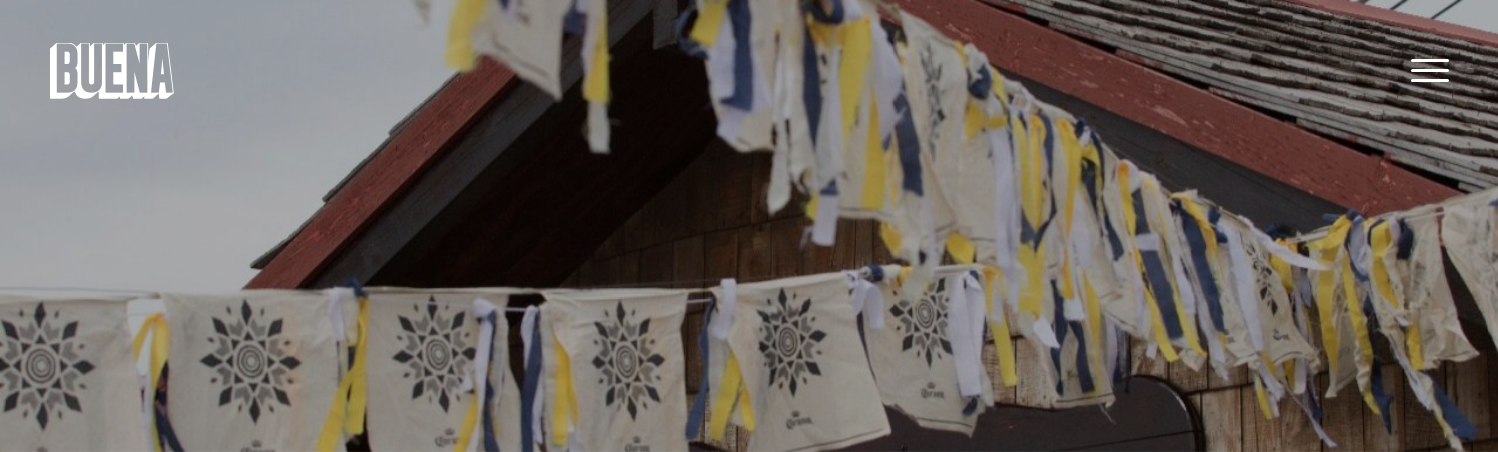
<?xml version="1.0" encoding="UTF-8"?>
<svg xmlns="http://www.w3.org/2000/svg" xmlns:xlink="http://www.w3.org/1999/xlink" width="1498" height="452">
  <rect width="100%" height="100%" fill="#ffffff" />
  <image x="0" y="0" width="1498" height="452" xlink:href="image1.png" />
  <image x="50" y="43" width="124" height="56" xlink:href="image2.png" />
  <rect x="1411" y="59" width="38" height="3" rx="1.5" fill="#ffffff" />
  <rect x="1411" y="69" width="38" height="3" rx="1.5" fill="#ffffff" />
  <rect x="1411" y="79" width="38" height="3" rx="1.5" fill="#ffffff" />
</svg>
